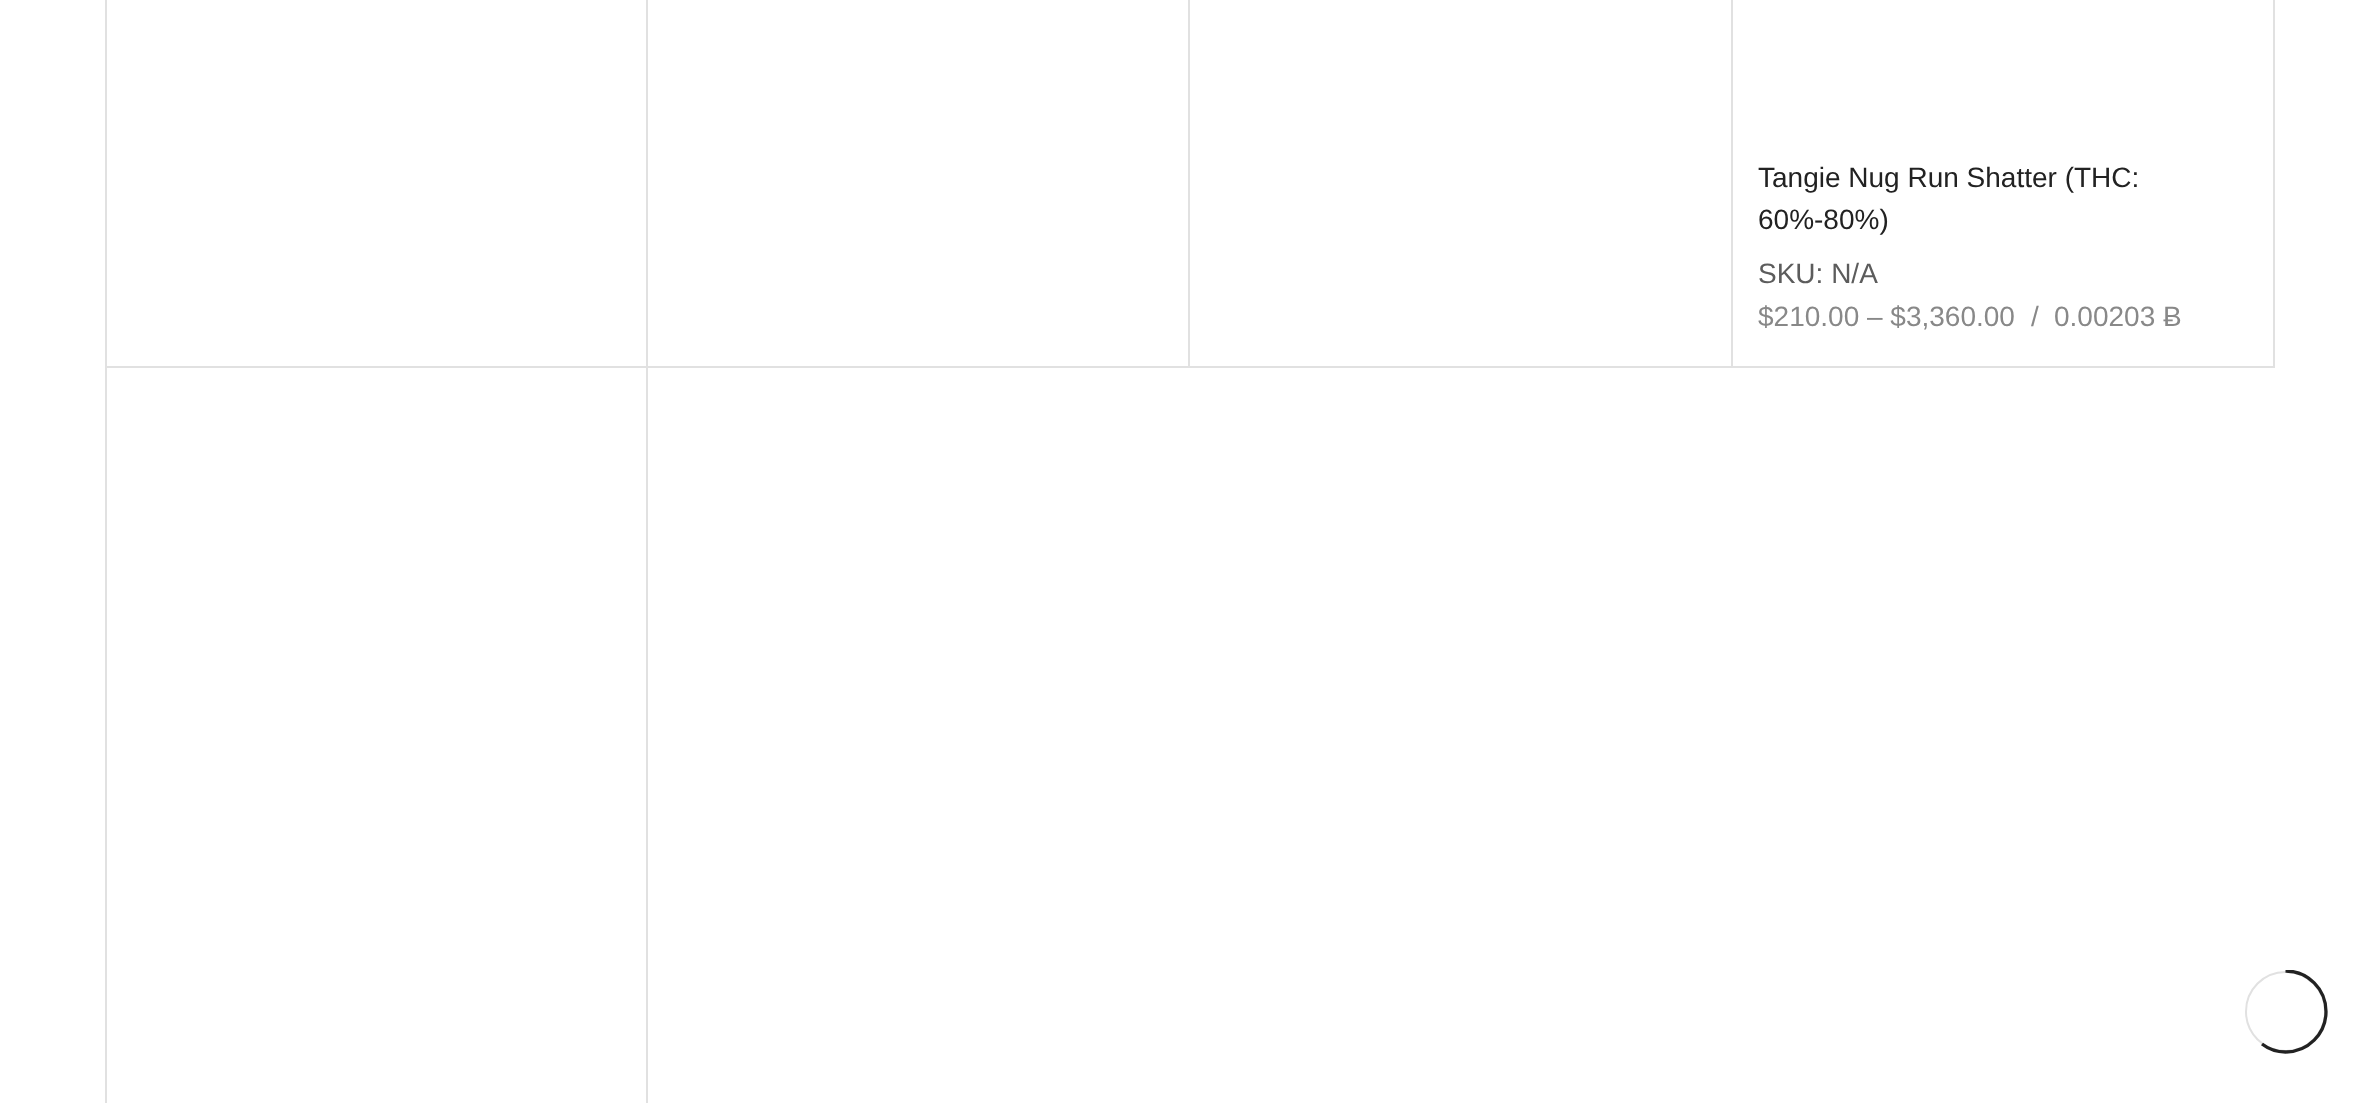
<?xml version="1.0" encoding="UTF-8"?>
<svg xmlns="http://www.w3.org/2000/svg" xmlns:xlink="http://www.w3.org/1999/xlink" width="2378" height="1103">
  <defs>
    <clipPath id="clip1"><rect x="2244" y="970" width="84" height="84" /></clipPath>
  </defs>
  <rect width="100%" height="100%" fill="#ffffff" />
  <rect x="105" width="2" height="1103" fill="#e1e1e1" />
  <rect x="646" width="2" height="1103" fill="#e1e1e1" />
  <rect x="107" y="366" width="541" height="2" fill="#e1e1e1" />
  <rect x="1188" width="2" height="368" fill="#e1e1e1" />
  <rect x="648" y="366" width="542" height="2" fill="#e1e1e1" />
  <rect x="1731" width="2" height="368" fill="#e1e1e1" />
  <rect x="1190" y="366" width="543" height="2" fill="#e1e1e1" />
  <rect x="2273" width="2" height="368" fill="#e1e1e1" />
  <rect x="1733" y="366" width="542" height="2" fill="#e1e1e1" />
  <circle cx="2285.5" cy="1011.5" r="39.5" fill="none" stroke="#e1e1e1" stroke-width="2" />
  <g clip-path="url(#clip1)">
    <path d="M 2285.5 971 c 22.5 0 40.5 18 40.5 40.5 c 0 22.5 -18 40.5 -40.5 40.5 c -9 0 -17 -3 -23.5 -8" fill="none" stroke="#222222" stroke-width="3.3" />
  </g>
  <text x="1758" y="187" style="font-family: Liberation Sans; font-size: 28px; fill: #222222">Tangie Nug Run Shatter (THC:</text>
  <text x="1758" y="229" style="font-family: Liberation Sans; font-size: 28px; fill: #222222">60%-80%)</text>
  <text x="1758" y="283" style="font-family: Liberation Sans; font-size: 28px; fill: #5c5c5c">SKU: N/A</text>
  <text x="1758" y="326" style="font-family: Liberation Sans; font-size: 28px; fill: #888888">$210.00 – $3,360.00</text>
  <text x="2031" y="326" style="font-family: Liberation Sans; font-size: 28px; fill: #888888">/</text>
  <text x="2054" y="326" style="font-family: Liberation Sans; font-size: 28px; fill: #888888">0.00203 Ƀ</text>
</svg>
